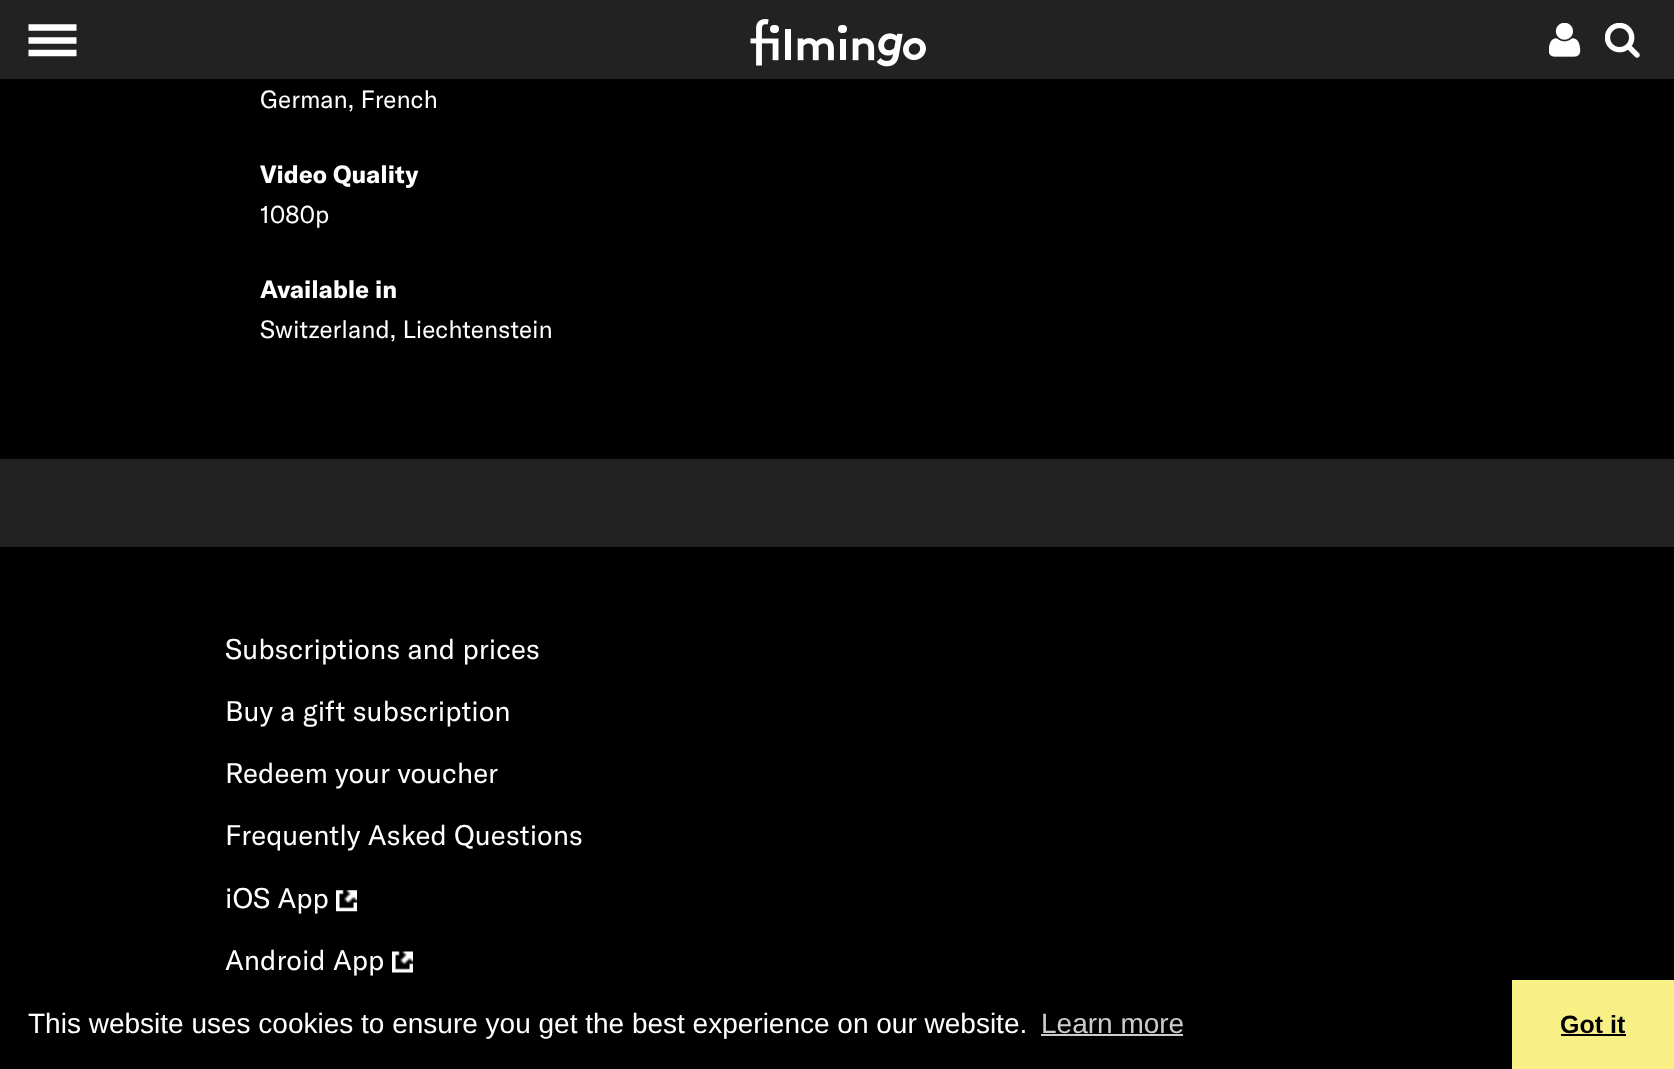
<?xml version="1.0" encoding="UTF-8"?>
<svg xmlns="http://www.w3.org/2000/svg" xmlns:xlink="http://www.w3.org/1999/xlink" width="1674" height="1069">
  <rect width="100%" height="100%" fill="#222222" />
  <path d="M 28.5 27.5 h 48 m -48 13 h 48 m -48 12.5 h 48" fill="none" stroke="#ffffff" stroke-width="6.4" />
  <rect x="770" y="25" width="9" height="8" rx="4" fill="#ffffff" />
  <rect x="838" y="25" width="9" height="8" rx="4" fill="#ffffff" />
  <image x="750" y="19" width="176" height="48" xlink:href="image1.png" />
  <image x="1549" y="23" width="32" height="34" xlink:href="image2.png" />
  <image x="1605" y="23" width="35" height="35" xlink:href="image3.png" />
  <rect y="79" width="1674" height="380" fill="#000000" />
  <rect y="547" width="1674" height="433" fill="#000000" />
  <image x="336" y="890" width="21" height="22" xlink:href="image4.png" />
  <image x="392" y="951" width="21" height="22" xlink:href="image5.png" />
  <rect y="980" width="1512" height="89" fill="#000000" />
  <rect x="1041" y="1034" width="142" height="2" fill="#cccccc" />
  <rect x="1512" y="980" width="162" height="89" fill="#f8ef85" />
  <rect x="1561" y="1034" width="65" height="2" fill="#000000" />
  <text x="260" y="108" style="font-family: GT America; font-size: 24.5px; fill: #ffffff">German, French</text>
  <text x="260" y="183" style="font-family: GT America; font-size: 24.5px; font-weight: bold; fill: #ffffff">Video Quality</text>
  <text x="260" y="223" style="font-family: GT America; font-size: 24.5px; fill: #ffffff">1080p</text>
  <text x="260" y="298" style="font-family: GT America; font-size: 24.5px; font-weight: bold; fill: #ffffff">Available in</text>
  <text x="260" y="338" style="font-family: GT America; font-size: 24.5px; fill: #ffffff">Switzerland, Liechtenstein</text>
  <text x="225" y="659" style="font-family: GT America; font-size: 28px; fill: #ffffff">Subscriptions and prices</text>
  <text x="225" y="721" style="font-family: GT America; font-size: 28px; fill: #ffffff">Buy a gift subscription</text>
  <text x="225" y="783" style="font-family: GT America; font-size: 28px; fill: #ffffff">Redeem your voucher</text>
  <text x="225" y="845" style="font-family: GT America; font-size: 28px; fill: #ffffff">Frequently Asked Questions</text>
  <text x="225" y="908" style="font-family: GT America; font-size: 28px; fill: #ffffff">iOS App</text>
  <text x="225" y="970" style="font-family: GT America; font-size: 28px; fill: #ffffff">Android App</text>
  <text x="28" y="1033" style="font-family: Liberation Sans; font-size: 28px; fill: #ffffff">This website uses cookies to ensure you get the best experience on our website.</text>
  <text x="1041" y="1033" style="font-family: Liberation Sans; font-size: 28px; fill: #cccccc">Learn more</text>
  <text x="1560" y="1033" style="font-family: Liberation Sans; font-size: 25px; font-weight: bold; fill: #000000">Got it</text>
</svg>
